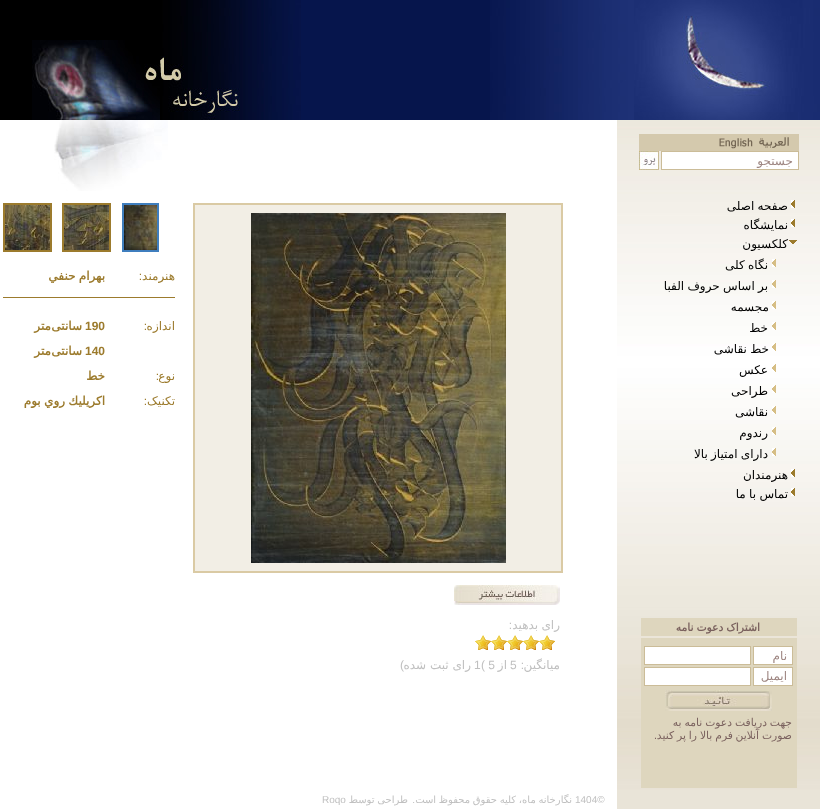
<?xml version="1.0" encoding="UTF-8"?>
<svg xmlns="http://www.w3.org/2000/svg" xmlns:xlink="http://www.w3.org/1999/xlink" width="820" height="809">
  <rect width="100%" height="100%" fill="#ffffff" />
  <rect x="301" width="189" height="120" fill="#06154c" />
  <image x="490" y="0" width="330" height="120" xlink:href="image1.png" />
  <image x="0" y="0" width="301" height="120" xlink:href="image2.png" />
  <image x="54" y="120" width="114" height="71" xlink:href="image3.png" />
  <image x="617" y="120" width="203" height="670" xlink:href="image4.png" />
  <rect x="639" y="134" width="160" height="17" fill="#d4c9ad" />
  <image x="759" y="137" width="30" height="11" xlink:href="image5.png" />
  <image x="719" y="138" width="34" height="11" xlink:href="image6.png" />
  <rect x="661.5" y="151.5" width="137" height="18" fill="#ffffff" stroke="#cbbc98" />
  <image x="639" y="151" width="20" height="19" xlink:href="image7.png" />
  <image x="791" y="200" width="4" height="8" xlink:href="image8.png" />
  <image x="791" y="219" width="4" height="8" xlink:href="image8.png" />
  <image x="789" y="240" width="8" height="4" xlink:href="image9.png" />
  <image x="772" y="259" width="4" height="8" xlink:href="image10.png" />
  <image x="772" y="280" width="4" height="8" xlink:href="image10.png" />
  <image x="772" y="301" width="4" height="8" xlink:href="image10.png" />
  <image x="772" y="322" width="4" height="8" xlink:href="image10.png" />
  <image x="772" y="343" width="4" height="8" xlink:href="image10.png" />
  <image x="772" y="364" width="4" height="8" xlink:href="image10.png" />
  <image x="772" y="385" width="4" height="8" xlink:href="image10.png" />
  <image x="772" y="406" width="4" height="8" xlink:href="image10.png" />
  <image x="772" y="427" width="4" height="8" xlink:href="image10.png" />
  <image x="772" y="448" width="4" height="8" xlink:href="image10.png" />
  <image x="791" y="469" width="4" height="8" xlink:href="image8.png" />
  <image x="791" y="488" width="4" height="8" xlink:href="image8.png" />
  <rect x="641" y="618" width="156" height="18" fill="#ded6be" />
  <rect x="641" y="638" width="156" height="150" fill="#ded6be" />
  <rect x="753.5" y="646.5" width="39" height="18" fill="#ffffff" stroke="#cbbc98" />
  <rect x="644.5" y="646.5" width="106" height="18" fill="#ffffff" stroke="#cbbc98" />
  <rect x="753.5" y="667.5" width="39" height="18" fill="#ffffff" stroke="#cbbc98" />
  <rect x="644.5" y="667.5" width="106" height="18" fill="#ffffff" stroke="#cbbc98" />
  <image x="665" y="690" width="107" height="21" xlink:href="image11.png" />
  <rect x="123" y="204" width="35" height="47" fill="none" stroke="#3f7ebe" stroke-width="2" />
  <image x="124" y="205" width="33" height="45" xlink:href="image12.png" />
  <rect x="63" y="204" width="47" height="47" fill="none" stroke="#9c7b2d" stroke-width="2" />
  <image x="64" y="205" width="45" height="45" xlink:href="image13.png" />
  <rect x="4" y="204" width="47" height="47" fill="none" stroke="#9c7b2d" stroke-width="2" />
  <image x="5" y="205" width="45" height="45" xlink:href="image14.png" />
  <rect x="3" y="297" width="172" height="1" fill="#9c7b2d" />
  <rect x="195" y="205" width="366" height="366" fill="#f2eee5" />
  <rect x="193" y="203" width="370" height="2" fill="#dacaa4" />
  <rect x="561" y="203" width="2" height="370" fill="#dacaa4" />
  <rect x="193" y="571" width="370" height="2" fill="#dacaa4" />
  <rect x="193" y="203" width="2" height="370" fill="#dacaa4" />
  <image x="251" y="213" width="255" height="350" xlink:href="image15.png" />
  <image x="454" y="585" width="106" height="20" xlink:href="image16.png" />
  <image x="539" y="635" width="16" height="15" xlink:href="image17.png" />
  <image x="523" y="635" width="16" height="15" xlink:href="image17.png" />
  <image x="507" y="635" width="16" height="15" xlink:href="image17.png" />
  <image x="491" y="635" width="16" height="15" xlink:href="image17.png" />
  <image x="475" y="635" width="16" height="15" xlink:href="image17.png" />
  <rect x="617" y="790" width="203" height="19" fill="#e9e4d8" />
  <text x="793" y="165" style="font-family: DejaVu Sans; font-size: 12px; direction: rtl; fill: #9e8682">جستجو</text>
  <text x="788" y="210" word-spacing="-0.5" style="font-family: DejaVu Sans; font-size: 12px; direction: rtl; fill: #000000">صفحه اصلی</text>
  <text x="788" y="229" style="font-family: DejaVu Sans; font-size: 12px; direction: rtl; fill: #000000">نمایشگاه</text>
  <text x="788" y="248" style="font-family: DejaVu Sans; font-size: 12px; direction: rtl; fill: #000000">کلکسیون</text>
  <text x="768" y="269" word-spacing="-0.5" style="font-family: DejaVu Sans; font-size: 12px; direction: rtl; fill: #000000">نگاه کلی</text>
  <text x="768" y="290" word-spacing="-0.5" style="font-family: DejaVu Sans; font-size: 12px; direction: rtl; fill: #000000">بر اساس حروف الفبا</text>
  <text x="769" y="311" style="font-family: DejaVu Sans; font-size: 12px; direction: rtl; fill: #000000">مجسمه</text>
  <text x="768" y="332" style="font-family: DejaVu Sans; font-size: 12px; direction: rtl; fill: #000000">خط</text>
  <text x="769" y="353" word-spacing="-0.5" style="font-family: DejaVu Sans; font-size: 12px; direction: rtl; fill: #000000">خط نقاشی</text>
  <text x="768" y="374" style="font-family: DejaVu Sans; font-size: 12px; direction: rtl; fill: #000000">عکس</text>
  <text x="768" y="395" style="font-family: DejaVu Sans; font-size: 12px; direction: rtl; fill: #000000">طراحی</text>
  <text x="768" y="416" style="font-family: DejaVu Sans; font-size: 12px; direction: rtl; fill: #000000">نقاشی</text>
  <text x="768" y="437" style="font-family: DejaVu Sans; font-size: 12px; direction: rtl; fill: #000000">رندوم</text>
  <text x="768" y="458" word-spacing="-0.5" style="font-family: DejaVu Sans; font-size: 12px; direction: rtl; fill: #000000">دارای امتیاز بالا</text>
  <text x="788" y="479" style="font-family: DejaVu Sans; font-size: 12px; direction: rtl; fill: #000000">هنرمندان</text>
  <text x="788" y="498" word-spacing="-0.5" style="font-family: DejaVu Sans; font-size: 12px; direction: rtl; fill: #000000">تماس با ما</text>
  <text x="760" y="631" word-spacing="-0.5" style="font-family: DejaVu Sans; font-size: 10.75px; font-weight: bold; direction: rtl; fill: #7a615e">اشتراک دعوت نامه</text>
  <text x="787" y="660" style="font-family: DejaVu Sans; font-size: 12px; direction: rtl; fill: #9e8682">نام</text>
  <text x="787" y="680" style="font-family: DejaVu Sans; font-size: 12px; direction: rtl; fill: #9e8682">ایمیل</text>
  <text x="792" y="726" word-spacing="-0.5" style="font-family: DejaVu Sans; font-size: 10.75px; direction: rtl; fill: #7a615e">جهت دریافت دعوت نامه به</text>
  <text x="792" y="739" word-spacing="-0.5" style="font-family: DejaVu Sans; font-size: 10.75px; direction: rtl; fill: #7a615e">صورت آنلاین</text>
  <text x="733" y="739" word-spacing="-0.5" style="font-family: DejaVu Sans; font-size: 10.75px; direction: rtl; fill: #7a615e">فرم بالا را پر کنید</text>
  <text x="657" y="739" style="font-family: Liberation Sans; font-size: 10.75px; direction: rtl; fill: #7a615e">.</text>
  <text x="175" y="280" style="font-family: DejaVu Sans; font-size: 12px; direction: rtl; fill: #9c7b2d">هنرمند</text>
  <text x="142" y="280" style="font-family: Liberation Sans; font-size: 12px; direction: rtl; fill: #9c7b2d">:</text>
  <text x="105" y="280" word-spacing="-0.5" style="font-family: DejaVu Sans; font-size: 12px; font-weight: bold; direction: rtl; fill: #9c7b2d">بهرام حنفي</text>
  <text x="175" y="330" style="font-family: DejaVu Sans; font-size: 12px; direction: rtl; fill: #9c7b2d">اندازه</text>
  <text x="147" y="330" style="font-family: Liberation Sans; font-size: 12px; direction: rtl; fill: #9c7b2d">:</text>
  <text x="85" y="330" style="font-family: Liberation Sans; font-size: 12px; font-weight: bold; fill: #9c7b2d">190</text>
  <text x="82" y="330" style="font-family: DejaVu Sans; font-size: 12px; font-weight: bold; direction: rtl; fill: #9c7b2d">سانتی</text>
  <text x="51" y="330" style="font-family: DejaVu Sans; font-size: 12px; font-weight: bold; direction: rtl; fill: #9c7b2d">متر</text>
  <text x="85" y="355" style="font-family: Liberation Sans; font-size: 12px; font-weight: bold; fill: #9c7b2d">140</text>
  <text x="82" y="355" style="font-family: DejaVu Sans; font-size: 12px; font-weight: bold; direction: rtl; fill: #9c7b2d">سانتی</text>
  <text x="51" y="355" style="font-family: DejaVu Sans; font-size: 12px; font-weight: bold; direction: rtl; fill: #9c7b2d">متر</text>
  <text x="175" y="380" style="font-family: DejaVu Sans; font-size: 12px; direction: rtl; fill: #9c7b2d">نوع</text>
  <text x="159" y="380" style="font-family: Liberation Sans; font-size: 12px; direction: rtl; fill: #9c7b2d">:</text>
  <text x="105" y="380" style="font-family: DejaVu Sans; font-size: 12px; font-weight: bold; direction: rtl; fill: #9c7b2d">خط</text>
  <text x="175" y="405" style="font-family: DejaVu Sans; font-size: 12px; direction: rtl; fill: #9c7b2d">تکنیک</text>
  <text x="147" y="405" style="font-family: Liberation Sans; font-size: 12px; direction: rtl; fill: #9c7b2d">:</text>
  <text x="105" y="405" word-spacing="-0.5" style="font-family: DejaVu Sans; font-size: 12px; font-weight: bold; direction: rtl; fill: #9c7b2d">اكريليك روي بوم</text>
  <text x="560" y="629" word-spacing="-0.5" style="font-family: DejaVu Sans; font-size: 12px; direction: rtl; fill: #c0c0c0">رای بدهید</text>
  <text x="512" y="629" style="font-family: Liberation Sans; font-size: 12px; direction: rtl; fill: #c0c0c0">:</text>
  <text x="560" y="669" style="font-family: DejaVu Sans; font-size: 12px; direction: rtl; fill: #c0c0c0">میانگین</text>
  <text x="524" y="669" style="font-family: Liberation Sans; font-size: 12px; direction: rtl; fill: #c0c0c0">:</text>
  <text x="510" y="669" style="font-family: Liberation Sans; font-size: 12px; fill: #c0c0c0">5</text>
  <text x="507" y="669" style="font-family: DejaVu Sans; font-size: 12px; direction: rtl; fill: #c0c0c0">از</text>
  <text x="481" y="669" style="font-family: Liberation Sans; font-size: 12px; fill: #c0c0c0">( 5</text>
  <text x="474" y="669" style="font-family: Liberation Sans; font-size: 12px; fill: #c0c0c0">1</text>
  <text x="471" y="669" style="font-family: DejaVu Sans; font-size: 12px; direction: rtl; fill: #c0c0c0">رای ثبت شده</text>
  <text x="404" y="669" style="font-family: Liberation Sans; font-size: 12px; direction: rtl; fill: #c0c0c0">)</text>
  <text x="575" y="803" style="font-family: Liberation Sans; font-size: 10px; fill: #c0c0c0">1404©</text>
  <text x="572" y="803" word-spacing="-0.5" style="font-family: DejaVu Sans; font-size: 10px; direction: rtl; fill: #c0c0c0">نگارخانه ماه</text>
  <text x="522" y="803" word-spacing="-0.5" style="font-family: DejaVu Sans; font-size: 10px; direction: rtl; fill: #c0c0c0">، کلیه حقوق محفوظ است</text>
  <text x="415" y="803" style="font-family: Liberation Sans; font-size: 10px; direction: rtl; fill: #c0c0c0">.</text>
  <text x="408" y="803" word-spacing="-0.5" style="font-family: DejaVu Sans; font-size: 10px; direction: rtl; fill: #c0c0c0">طراحی توسط</text>
  <text x="322" y="803" style="font-family: Liberation Sans; font-size: 10px; fill: #c0c0c0">Roqo</text>
</svg>
